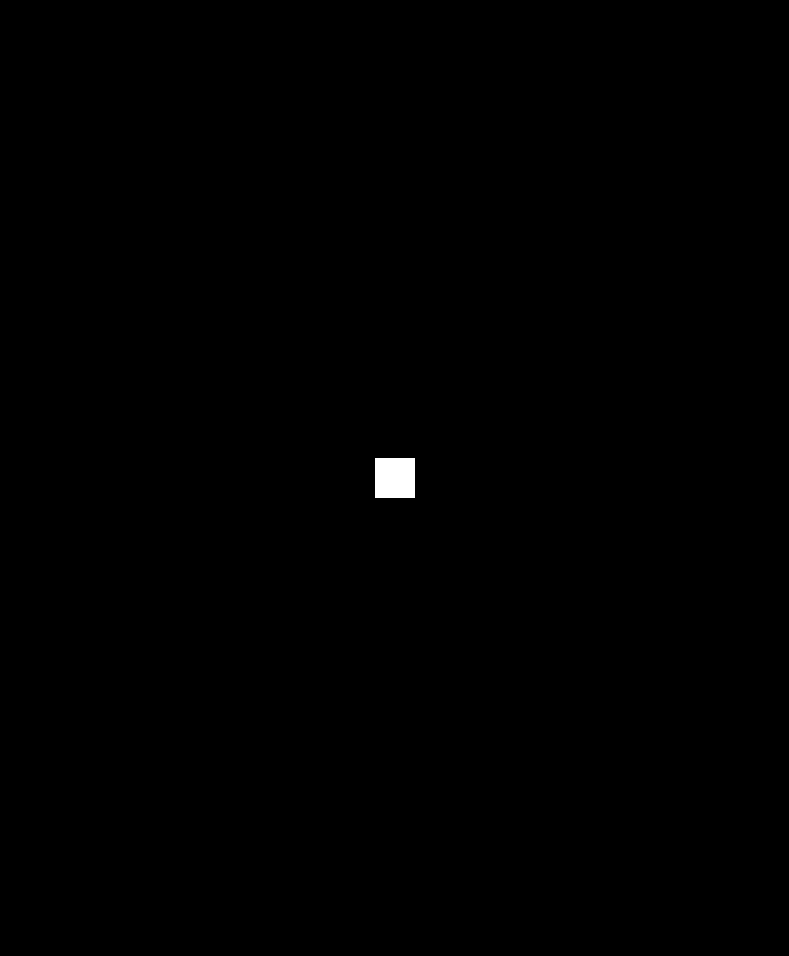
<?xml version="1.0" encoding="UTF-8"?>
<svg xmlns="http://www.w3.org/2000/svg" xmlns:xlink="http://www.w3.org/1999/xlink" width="789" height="956">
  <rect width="100%" height="100%" fill="#000000" />
  <rect x="375" y="458" width="40" height="40" fill="#ffffff" />
</svg>
